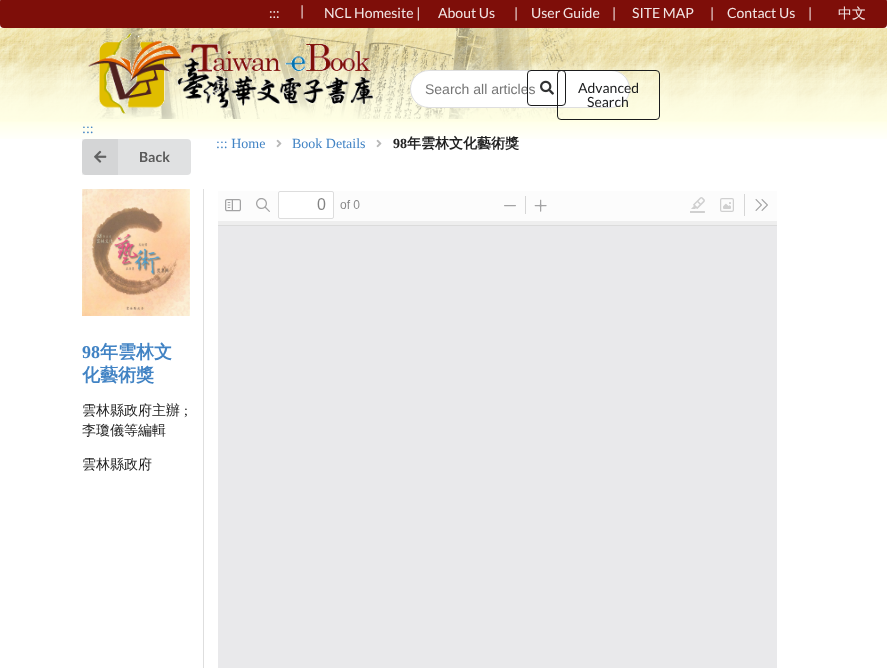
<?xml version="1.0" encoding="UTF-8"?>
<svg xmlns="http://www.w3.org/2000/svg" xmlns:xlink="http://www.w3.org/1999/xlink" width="887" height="668">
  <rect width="100%" height="100%" fill="#ffffff" />
  <rect y="-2" width="887" height="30" rx="4" fill="#7e0e09" />
  <image x="0" y="28" width="887" height="111" xlink:href="image1.png" />
  <image x="68" y="28" width="519" height="91" xlink:href="image2.png" />
  <image x="88" y="33" width="286" height="81" xlink:href="image3.png" />
  <rect x="410" y="70" width="220" height="38" rx="19" fill="#ffffff" />
  <rect x="410.5" y="70.5" width="219" height="37" rx="18.5" fill="none" stroke="#222426" stroke-opacity="0.15" />
  <rect x="82" y="139" width="109" height="36" rx="4" fill="#e0e1e2" />
  <rect x="82" y="139" width="36" height="36" fill="#000000" fill-opacity="0.05" />
  <image x="94" y="150" width="13" height="13" xlink:href="image5.png" />
  <image x="276" y="139" width="6" height="9" xlink:href="image6.png" />
  <image x="376" y="139" width="6" height="9" xlink:href="image6.png" />
  <image x="82" y="189" width="108" height="127" xlink:href="image7.png" />
  <rect x="203" y="189" width="1" height="479" fill="#dedede" />
  <image x="218" y="191" width="559" height="477" xlink:href="image8.png" />
  <text x="269" y="18" style="font-family: Lato; font-size: 14px; fill: #f2e7e6">:::</text>
  <text x="300" y="16" style="font-family: Lato; font-size: 14px; fill: #f2e7e6">|</text>
  <text x="324" y="18" style="font-family: Lato; font-size: 14px; fill: #f2e7e6">NCL Homesite |</text>
  <text x="438" y="18" style="font-family: Lato; font-size: 14px; fill: #f2e7e6">About Us</text>
  <text x="514" y="18" style="font-family: Lato; font-size: 14px; fill: #f2e7e6">|</text>
  <text x="531" y="18" style="font-family: Lato; font-size: 14px; fill: #f2e7e6">User Guide</text>
  <text x="612" y="18" style="font-family: Lato; font-size: 14px; fill: #f2e7e6">|</text>
  <text x="632" y="18" style="font-family: Lato; font-size: 14px; fill: #f2e7e6">SITE MAP</text>
  <text x="710" y="18" style="font-family: Lato; font-size: 14px; fill: #f2e7e6">|</text>
  <text x="727" y="18" style="font-family: Lato; font-size: 14px; fill: #f2e7e6">Contact Us</text>
  <text x="808" y="18" style="font-family: Lato; font-size: 14px; fill: #f2e7e6">|</text>
  <text x="838" y="18" style="font-family: WenQuanYi Zen Hei; font-size: 14px; font-weight: 500; fill: #f2e7e6">中文</text>
  <text x="425" y="94" style="font-family: Liberation Sans; font-size: 14px; fill: #757575">Search all articles</text>
  <rect x="527.5" y="70.5" width="38" height="35" rx="3.5" fill="none" stroke="#1b1c1d" />
  <image x="540" y="80" width="14" height="15" xlink:href="image4.png" />
  <rect x="557.5" y="70.5" width="102" height="49" rx="3.5" fill="none" stroke="#1b1c1d" />
  <text x="578" y="93" style="font-family: Lato; font-size: 14px; fill: #1b1c1d">Advanced</text>
  <text x="587" y="107" style="font-family: Lato; font-size: 14px; fill: #1b1c1d">Search</text>
  <text x="82" y="133" style="font-family: Liberation Serif; font-size: 14px; fill: #4183c4">:::</text>
  <text x="139" y="162" style="font-family: Lato; font-size: 14px; font-weight: bold; fill: #5a5a5a">Back</text>
  <text x="216" y="148" style="font-family: Liberation Serif; font-size: 14px; fill: #4183c4">::: Home</text>
  <text x="292" y="148" style="font-family: Liberation Serif; font-size: 14px; fill: #4183c4">Book Details</text>
  <text x="393" y="148" style="font-family: Liberation Serif; font-size: 14px; font-weight: bold; fill: #212121">98</text>
  <text x="407" y="148" style="font-family: WenQuanYi Zen Hei; font-size: 14px; font-weight: bold; fill: #212121">年雲林文化藝術獎</text>
  <text x="82" y="358" style="font-family: Liberation Serif; font-size: 18px; font-weight: bold; fill: #4183c4">98</text>
  <text x="100" y="358" style="font-family: WenQuanYi Zen Hei; font-size: 18px; font-weight: bold; fill: #4183c4">年雲林文</text>
  <text x="82" y="381" style="font-family: WenQuanYi Zen Hei; font-size: 18px; font-weight: bold; fill: #4183c4">化藝術獎</text>
  <text x="82" y="415" style="font-family: WenQuanYi Zen Hei; font-size: 14px; font-weight: 500; fill: #212121">雲林縣政府主辦</text>
  <text x="184" y="415" style="font-family: Liberation Serif; font-size: 14px; fill: #212121">;</text>
  <text x="82" y="435" style="font-family: WenQuanYi Zen Hei; font-size: 14px; font-weight: 500; fill: #212121">李瓊儀等編輯</text>
  <text x="82" y="469" style="font-family: WenQuanYi Zen Hei; font-size: 14px; font-weight: 500; fill: #212121">雲林縣政府</text>
</svg>
